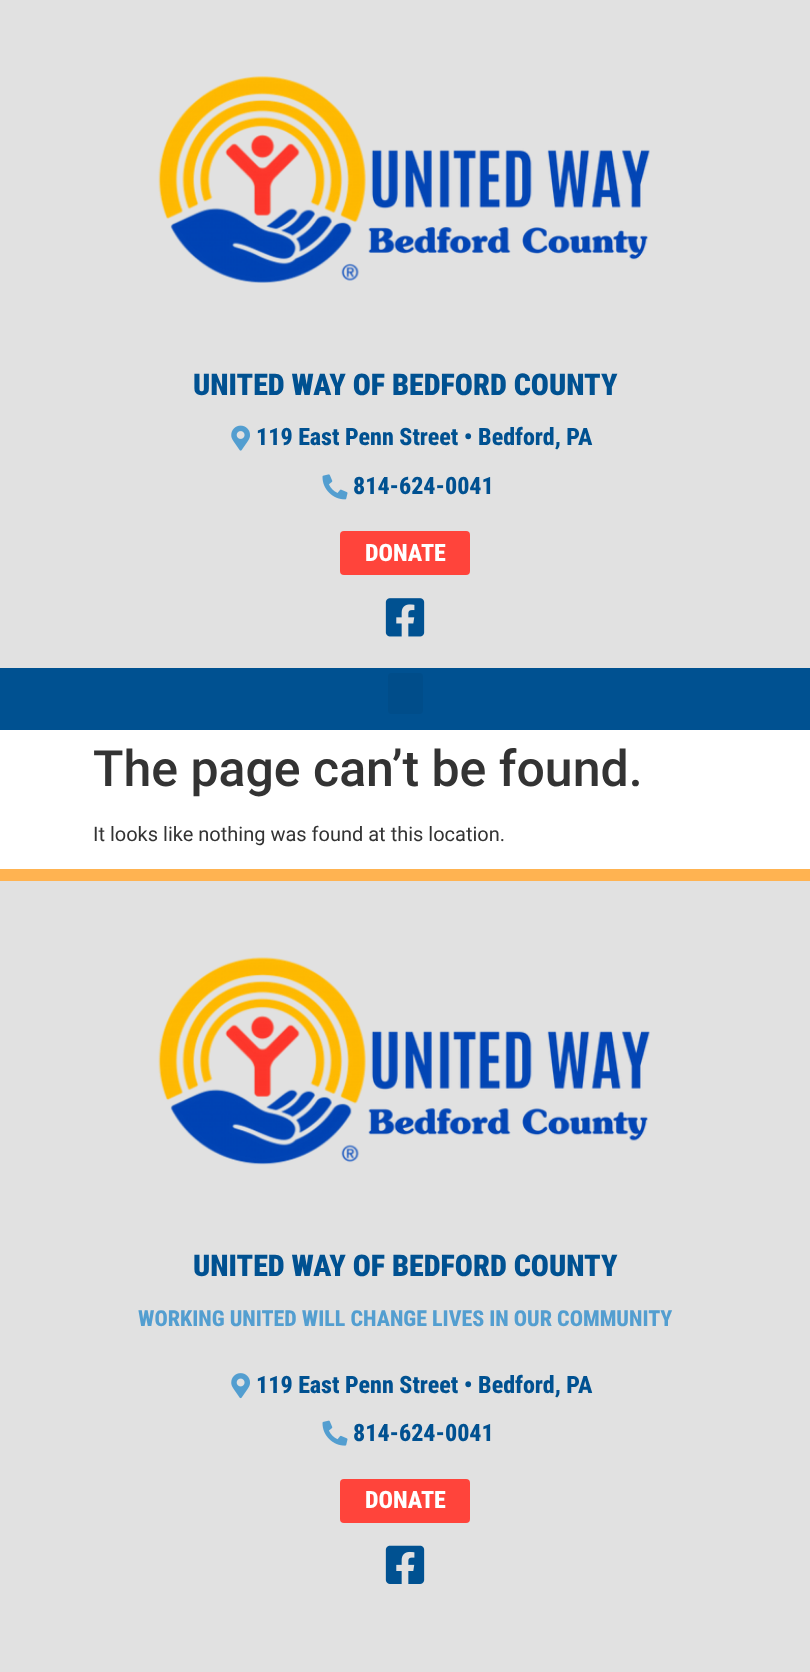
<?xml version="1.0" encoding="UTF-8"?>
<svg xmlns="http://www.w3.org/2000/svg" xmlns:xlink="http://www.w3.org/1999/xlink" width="810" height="1672">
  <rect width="100%" height="100%" fill="#ffffff" />
  <rect width="810" height="668" fill="#e1e1e1" />
  <image x="158" y="76" width="492" height="207" xlink:href="image1.png" />
  <image x="231" y="425" width="19" height="26" xlink:href="image2.png" />
  <image x="322" y="474" width="26" height="26" xlink:href="image3.png" />
  <rect x="340" y="531" width="130" height="44" rx="4" fill="#ff443b" />
  <image x="385" y="598" width="40" height="39" xlink:href="image4.png" />
  <rect y="668" width="810" height="62" fill="#005191" />
  <rect x="388" y="673" width="35" height="41" rx="4" fill="#004d8a" />
  <rect y="881" width="810" height="791" fill="#e1e1e1" />
  <rect y="869" width="810" height="12" fill="#ffb351" />
  <image x="158" y="957" width="492" height="208" xlink:href="image5.png" />
  <image x="231" y="1373" width="19" height="26" xlink:href="image6.png" />
  <image x="322" y="1420" width="26" height="26" xlink:href="image7.png" />
  <rect x="340" y="1479" width="130" height="44" rx="4" fill="#ff443b" />
  <image x="385" y="1545" width="40" height="39" xlink:href="image8.png" />
  <text x="193" y="395" style="font-family: Roboto Condensed; font-size: 30px; font-weight: 900; fill: #005191">UNITED WAY OF BEDFORD COUNTY</text>
  <text x="256" y="445" style="font-family: Roboto Condensed; font-size: 24px; font-weight: 800; fill: #005191">119 East Penn Street • Bedford, PA</text>
  <text x="353" y="494" style="font-family: Roboto Condensed; font-size: 24px; font-weight: 800; fill: #005191">814-624-0041</text>
  <text x="365" y="561" style="font-family: Roboto Condensed; font-size: 24px; font-weight: 800; fill: #ffffff">DONATE</text>
  <text x="93" y="786" style="font-family: Roboto; font-size: 50px; font-weight: 500; fill: #333333">The page can’t be found.</text>
  <text x="93" y="841" style="font-family: Roboto; font-size: 20px; fill: #333333">It looks like nothing was found at this location.</text>
  <text x="193" y="1276" style="font-family: Roboto Condensed; font-size: 30px; font-weight: 900; fill: #005191">UNITED WAY OF BEDFORD COUNTY</text>
  <text x="138" y="1326" style="font-family: Roboto Condensed; font-size: 22px; font-weight: 800; fill: #539ed0">WORKING UNITED WILL CHANGE LIVES IN OUR COMMUNITY</text>
  <text x="256" y="1393" style="font-family: Roboto Condensed; font-size: 24px; font-weight: 800; fill: #005191">119 East Penn Street • Bedford, PA</text>
  <text x="353" y="1441" style="font-family: Roboto Condensed; font-size: 24px; font-weight: 800; fill: #005191">814-624-0041</text>
  <text x="365" y="1508" style="font-family: Roboto Condensed; font-size: 24px; font-weight: 800; fill: #ffffff">DONATE</text>
</svg>
